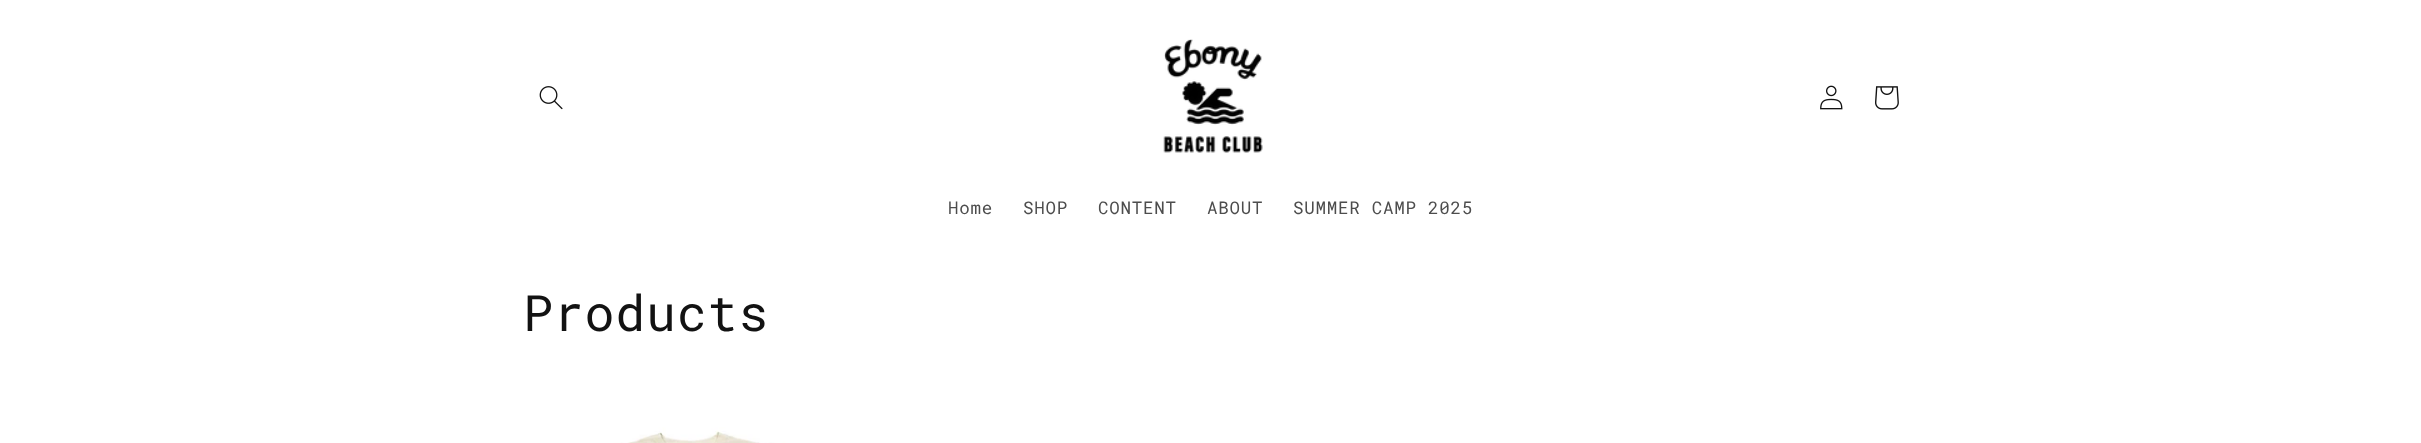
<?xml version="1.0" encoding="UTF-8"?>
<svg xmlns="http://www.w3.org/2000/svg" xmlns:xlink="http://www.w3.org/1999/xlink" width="2421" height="443">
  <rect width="100%" height="100%" fill="#ffffff" />
  <image x="539" y="86" width="24" height="24" xlink:href="image1.png" />
  <image x="1163" y="39" width="100" height="114" xlink:href="image2.png" />
  <image x="1820" y="85" width="23" height="25" xlink:href="image3.png" />
  <image x="1875" y="86" width="24" height="24" xlink:href="image4.png" />
  <image x="524" y="383" width="336" height="60" xlink:href="image5.png" />
  <text x="948" y="214" style="font-family: Roboto Mono; font-size: 17.5px; letter-spacing: 0.75px; fill: #4d4d4d">Home</text>
  <text x="1023" y="214" style="font-family: Roboto Mono; font-size: 17.5px; letter-spacing: 0.75px; fill: #4d4d4d">SHOP</text>
  <text x="1098" y="214" style="font-family: Roboto Mono; font-size: 17.5px; letter-spacing: 0.75px; fill: #4d4d4d">CONTENT</text>
  <text x="1207" y="214" style="font-family: Roboto Mono; font-size: 17.5px; letter-spacing: 0.75px; fill: #4d4d4d">ABOUT</text>
  <text x="1293" y="214" style="font-family: Roboto Mono; font-size: 17.5px; letter-spacing: 0.75px; fill: #4d4d4d">SUMMER CAMP 2025</text>
  <text x="523" y="331" style="font-family: Roboto Mono; font-size: 50px; letter-spacing: 0.75px; fill: #121212">Products</text>
</svg>
